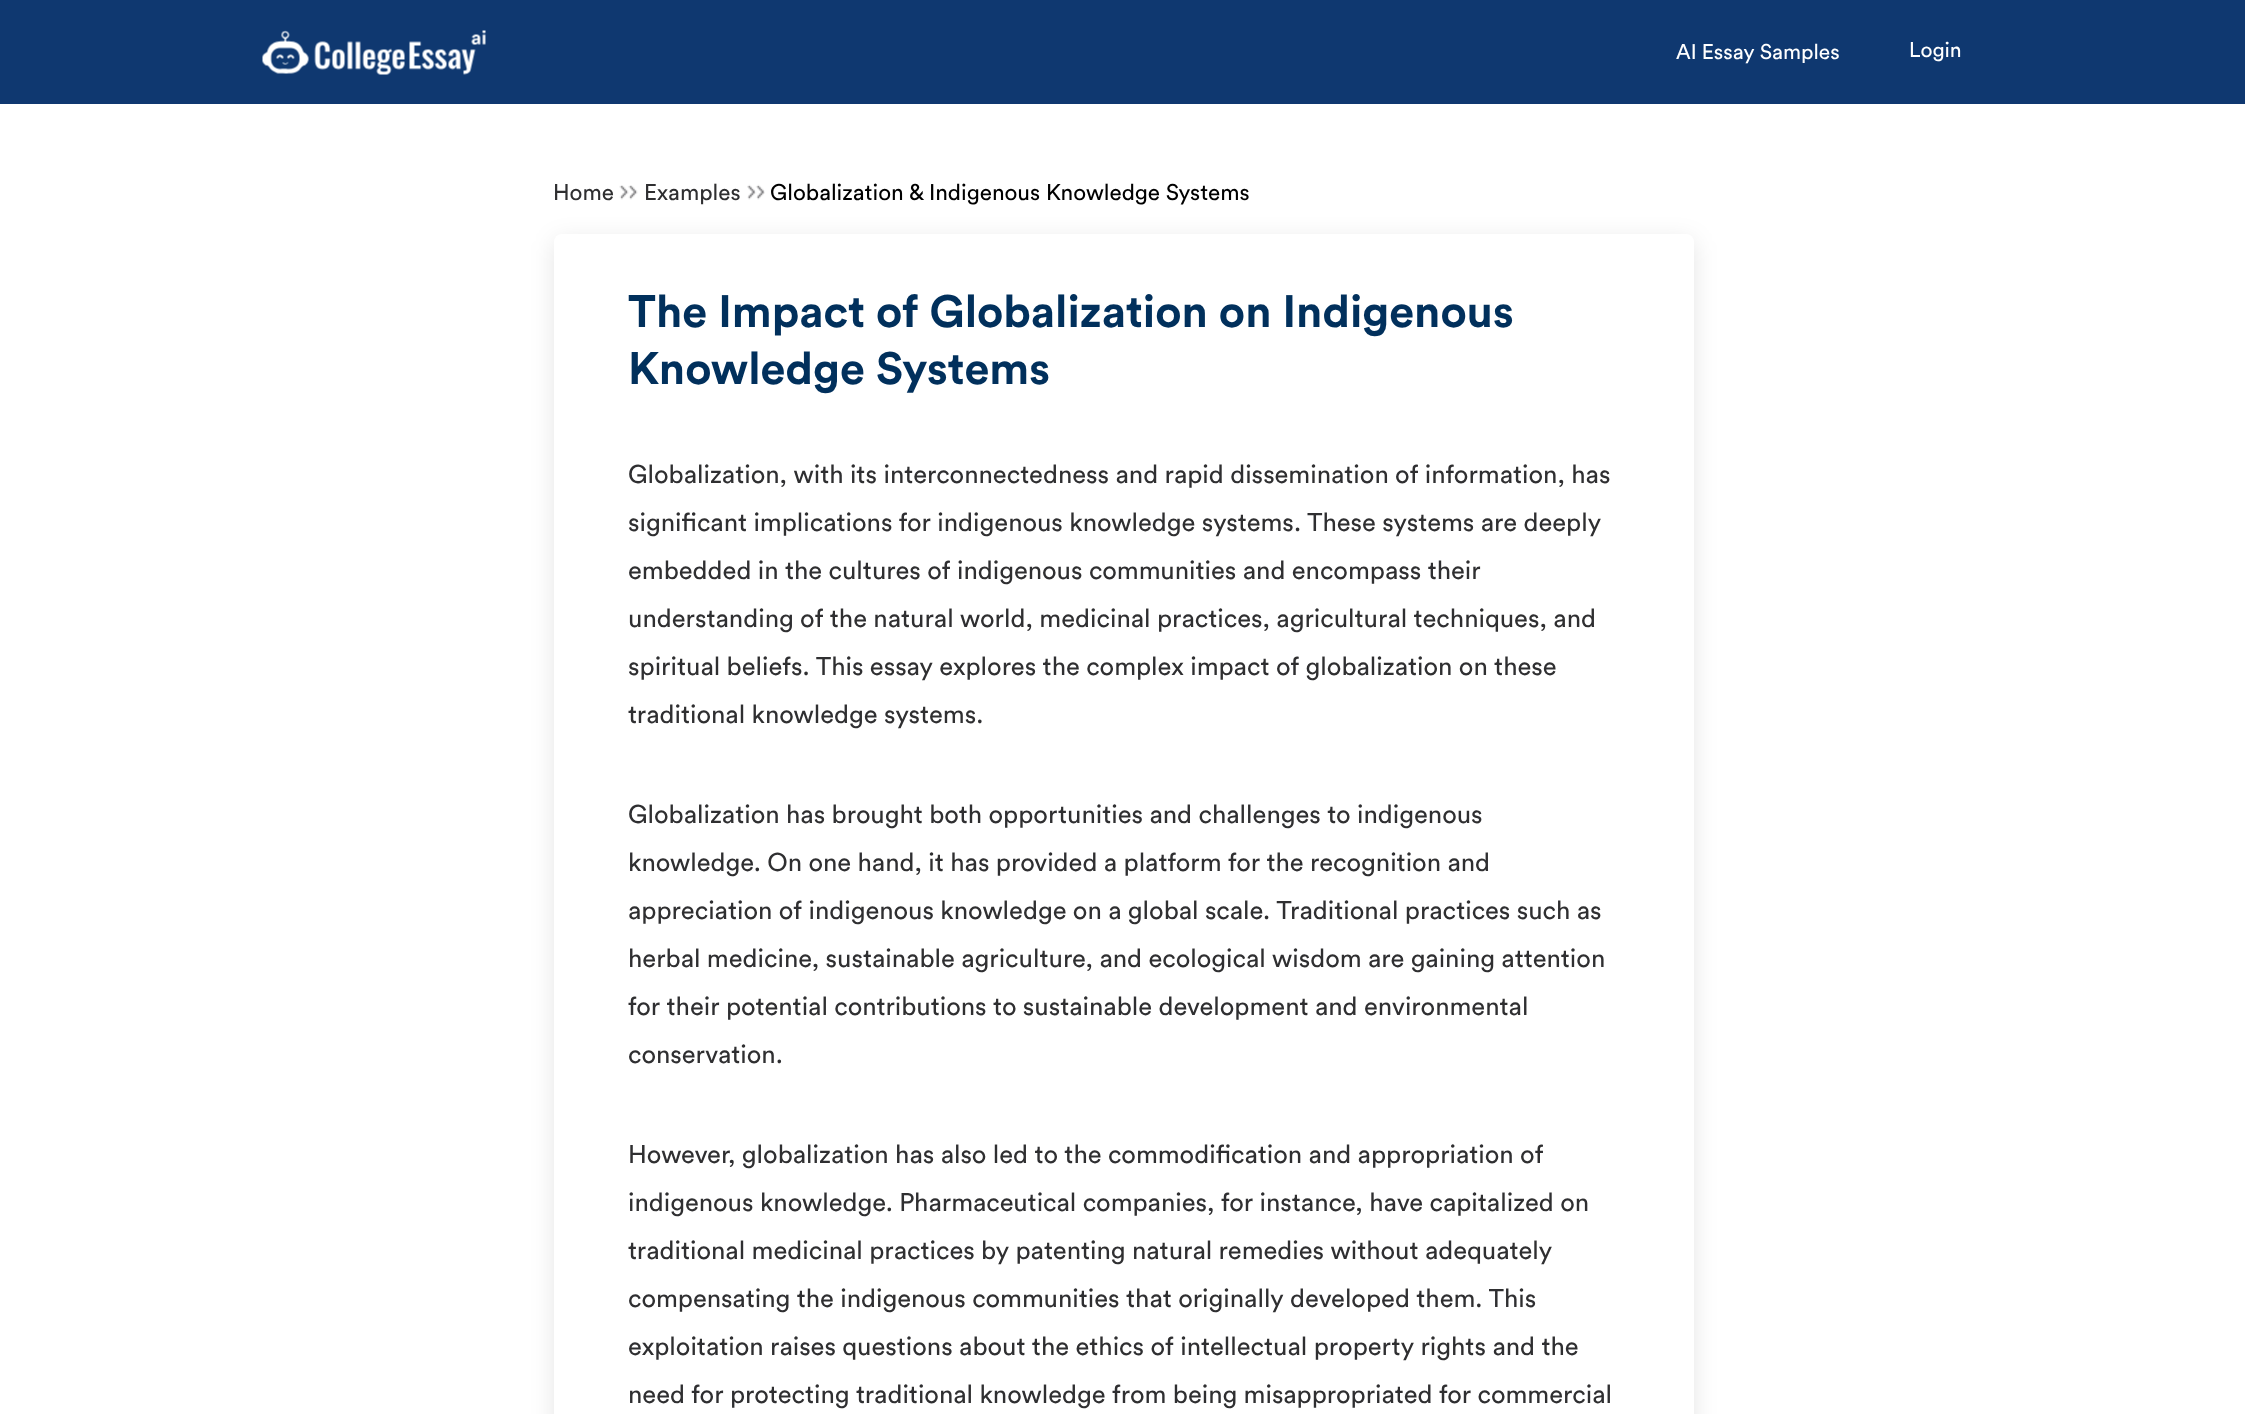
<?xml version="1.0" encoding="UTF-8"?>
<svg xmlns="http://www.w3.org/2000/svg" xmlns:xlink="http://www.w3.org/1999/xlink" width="2245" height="1414">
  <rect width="100%" height="100%" fill="#ffffff" />
  <rect width="2245" height="104" fill="#0f3870" />
  <image x="262" y="30" width="224" height="45" xlink:href="image1.png" />
  <image x="619" y="185" width="19" height="15" xlink:href="image2.png" />
  <image x="747" y="184" width="18" height="16" xlink:href="image3.png" />
  <rect x="554" y="240" width="1140" height="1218" rx="8" fill="#000000" fill-opacity="0.1" filter="blur(12px)" />
  <rect x="554" y="234" width="1140" height="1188" rx="8" fill="#ffffff" />
  <text x="1676" y="59" style="font-family: Circular; font-size: 21px; fill: #ffffff">AI Essay Samples</text>
  <text x="1909" y="57" style="font-family: Circular; font-size: 21px; fill: #ffffff">Login</text>
  <text x="553" y="200" style="font-family: Circular; font-size: 22.5px; fill: #2f2f31">Home</text>
  <text x="644" y="200" style="font-family: Circular; font-size: 22.5px; fill: #2f2f31">Examples</text>
  <text x="770" y="200" style="font-family: Circular; font-size: 22.5px; fill: #000000">Globalization &amp; Indigenous Knowledge Systems</text>
  <text x="628" y="327" style="font-family: Circular; font-size: 45px; font-weight: bold; fill: #01305c">The Impact of Globalization on Indigenous</text>
  <text x="628" y="384" style="font-family: Circular; font-size: 45px; font-weight: bold; fill: #01305c">Knowledge Systems</text>
  <text x="628" y="483" style="font-family: Circular; font-size: 25.5px; fill: #2f2f31">Globalization, with its interconnectedness and rapid dissemination of information, has</text>
  <text x="628" y="531" style="font-family: Circular; font-size: 25.5px; fill: #2f2f31">significant implications for indigenous knowledge systems. These systems are deeply</text>
  <text x="628" y="579" style="font-family: Circular; font-size: 25.5px; fill: #2f2f31">embedded in the cultures of indigenous communities and encompass their</text>
  <text x="628" y="627" style="font-family: Circular; font-size: 25.5px; fill: #2f2f31">understanding of the natural world, medicinal practices, agricultural techniques, and</text>
  <text x="628" y="675" style="font-family: Circular; font-size: 25.5px; fill: #2f2f31">spiritual beliefs. This essay explores the complex impact of globalization on these</text>
  <text x="628" y="723" style="font-family: Circular; font-size: 25.5px; fill: #2f2f31">traditional knowledge systems.</text>
  <text x="628" y="823" style="font-family: Circular; font-size: 25.5px; fill: #2f2f31">Globalization has brought both opportunities and challenges to indigenous</text>
  <text x="628" y="871" style="font-family: Circular; font-size: 25.5px; fill: #2f2f31">knowledge. On one hand, it has provided a platform for the recognition and</text>
  <text x="628" y="919" style="font-family: Circular; font-size: 25.5px; fill: #2f2f31">appreciation of indigenous knowledge on a global scale. Traditional practices such as</text>
  <text x="628" y="967" style="font-family: Circular; font-size: 25.5px; fill: #2f2f31">herbal medicine, sustainable agriculture, and ecological wisdom are gaining attention</text>
  <text x="628" y="1015" style="font-family: Circular; font-size: 25.5px; fill: #2f2f31">for their potential contributions to sustainable development and environmental</text>
  <text x="628" y="1063" style="font-family: Circular; font-size: 25.5px; fill: #2f2f31">conservation.</text>
  <text x="628" y="1163" style="font-family: Circular; font-size: 25.5px; fill: #2f2f31">However, globalization has also led to the commodification and appropriation of</text>
  <text x="628" y="1211" style="font-family: Circular; font-size: 25.5px; fill: #2f2f31">indigenous knowledge. Pharmaceutical companies, for instance, have capitalized on</text>
  <text x="628" y="1259" style="font-family: Circular; font-size: 25.5px; fill: #2f2f31">traditional medicinal practices by patenting natural remedies without adequately</text>
  <text x="628" y="1307" style="font-family: Circular; font-size: 25.5px; fill: #2f2f31">compensating the indigenous communities that originally developed them. This</text>
  <text x="628" y="1355" style="font-family: Circular; font-size: 25.5px; fill: #2f2f31">exploitation raises questions about the ethics of intellectual property rights and the</text>
  <text x="628" y="1403" style="font-family: Circular; font-size: 25.5px; fill: #2f2f31">need for protecting traditional knowledge from being misappropriated for commercial</text>
</svg>
